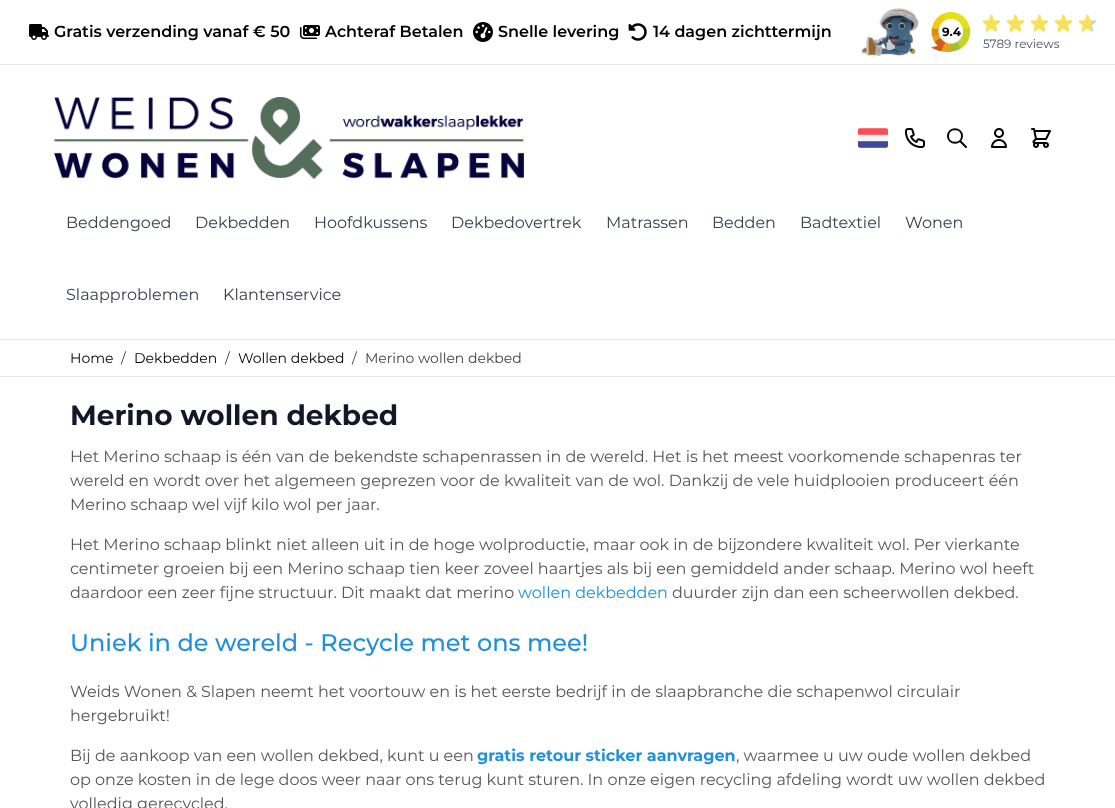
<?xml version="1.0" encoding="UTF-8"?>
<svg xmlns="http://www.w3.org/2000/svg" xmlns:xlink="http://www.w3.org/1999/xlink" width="1115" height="808">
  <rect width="100%" height="100%" fill="#ffffff" />
  <rect y="64" width="1115" height="1" fill="#e5e7eb" />
  <image x="29" y="24" width="20" height="16" xlink:href="image1.png" />
  <image x="300" y="25" width="20" height="14" xlink:href="image2.png" />
  <image x="473" y="22" width="20" height="20" xlink:href="image3.png" />
  <image x="628" y="23" width="19" height="18" xlink:href="image4.png" />
  <image x="861" y="8" width="58" height="48" xlink:href="image5.png" />
  <image x="983" y="14" width="18" height="18" xlink:href="image7.png" />
  <image x="1007" y="14" width="18" height="18" xlink:href="image7.png" />
  <image x="1031" y="14" width="18" height="18" xlink:href="image7.png" />
  <image x="1055" y="14" width="18" height="18" xlink:href="image7.png" />
  <image x="1079" y="14" width="18" height="18" xlink:href="image8.png" />
  <rect y="339" width="1115" height="1" fill="#e5e7eb" />
  <image x="54" y="97" width="470" height="82" xlink:href="image9.png" />
  <image x="858" y="128" width="30" height="20" xlink:href="image10.png" />
  <image x="905" y="128" width="20" height="20" xlink:href="image11.png" />
  <path d="M 966 147 l -6 -6 m 2 -5 c 0 9 -14 9 -14 0 c 0 -9 14 -9 14 0 z" fill="none" stroke="#000000" stroke-width="2" stroke-linecap="round" stroke-linejoin="round" />
  <image x="991" y="128" width="16" height="20" xlink:href="image12.png" />
  <image x="1031" y="128" width="20" height="20" xlink:href="image13.png" />
  <rect y="376" width="1115" height="1" fill="#e5e7eb" />
  <text x="54" y="37" style="font-family: Montserrat; font-size: 16px; font-weight: 600; fill: #000000">Gratis verzending vanaf € 50</text>
  <text x="325" y="37" style="font-family: Montserrat; font-size: 16px; font-weight: 600; fill: #000000">Achteraf Betalen</text>
  <text x="498" y="37" style="font-family: Montserrat; font-size: 16px; font-weight: 600; fill: #000000">Snelle levering</text>
  <text x="653" y="37" style="font-family: Montserrat; font-size: 16px; font-weight: 600; fill: #000000">14 dagen zichttermijn</text>
  <text x="942" y="36" style="font-family: Montserrat; font-size: 12px; font-weight: bold; fill: #000000">9.4</text>
  <image x="931" y="12" width="40" height="40" xlink:href="image6.png" />
  <text x="983" y="48" style="font-family: Montserrat; font-size: 12px; fill: #4b5563">5789 reviews</text>
  <text x="66" y="228" style="font-family: Montserrat; font-size: 16px; fill: #374151">Beddengoed</text>
  <text x="195" y="228" style="font-family: Montserrat; font-size: 16px; fill: #374151">Dekbedden</text>
  <text x="314" y="228" style="font-family: Montserrat; font-size: 16px; fill: #374151">Hoofdkussens</text>
  <text x="451" y="228" style="font-family: Montserrat; font-size: 16px; fill: #374151">Dekbedovertrek</text>
  <text x="606" y="228" style="font-family: Montserrat; font-size: 16px; fill: #374151">Matrassen</text>
  <text x="712" y="228" style="font-family: Montserrat; font-size: 16px; fill: #374151">Bedden</text>
  <text x="800" y="228" style="font-family: Montserrat; font-size: 16px; fill: #374151">Badtextiel</text>
  <text x="905" y="228" style="font-family: Montserrat; font-size: 16px; fill: #374151">Wonen</text>
  <text x="66" y="300" style="font-family: Montserrat; font-size: 16px; fill: #374151">Slaapproblemen</text>
  <text x="223" y="300" style="font-family: Montserrat; font-size: 16px; fill: #374151">Klantenservice</text>
  <text x="70" y="363" style="font-family: Montserrat; font-size: 14px; fill: #000000">Home</text>
  <text x="121" y="363" style="font-family: Montserrat; font-size: 14px; fill: #3f3f46">/</text>
  <text x="134" y="363" style="font-family: Montserrat; font-size: 14px; fill: #000000">Dekbedden</text>
  <text x="225" y="363" style="font-family: Montserrat; font-size: 14px; fill: #3f3f46">/</text>
  <text x="238" y="363" style="font-family: Montserrat; font-size: 14px; fill: #000000">Wollen dekbed</text>
  <text x="352" y="363" style="font-family: Montserrat; font-size: 14px; fill: #3f3f46">/</text>
  <text x="365" y="363" style="font-family: Montserrat; font-size: 14px; fill: #3f3f46">Merino wollen dekbed</text>
  <text x="70" y="425" style="font-family: Montserrat; font-size: 28px; font-weight: bold; fill: #111827">Merino wollen dekbed</text>
  <text x="70" y="462" style="font-family: Montserrat; font-size: 16px; fill: #575757">Het Merino schaap is één van de bekendste schapenrassen in de wereld. Het is het meest voorkomende schapenras ter</text>
  <text x="70" y="486" style="font-family: Montserrat; font-size: 16px; fill: #575757">wereld en wordt over het algemeen geprezen voor de kwaliteit van de wol. Dankzij de vele huidplooien produceert één</text>
  <text x="70" y="510" style="font-family: Montserrat; font-size: 16px; fill: #575757">Merino schaap wel vijf kilo wol per jaar.</text>
  <text x="70" y="550" style="font-family: Montserrat; font-size: 16px; fill: #575757">Het Merino schaap blinkt niet alleen uit in de hoge wolproductie, maar ook in de bijzondere kwaliteit wol. Per vierkante</text>
  <text x="70" y="574" style="font-family: Montserrat; font-size: 16px; fill: #575757">centimeter groeien bij een Merino schaap tien keer zoveel haartjes als bij een gemiddeld ander schaap. Merino wol heeft</text>
  <text x="70" y="598" style="font-family: Montserrat; font-size: 16px; fill: #575757">daardoor een zeer fijne structuur. Dit maakt dat merino</text>
  <text x="518" y="598" style="font-family: Montserrat; font-size: 16px; fill: #2190d8">wollen dekbedden</text>
  <text x="672" y="598" style="font-family: Montserrat; font-size: 16px; fill: #575757">duurder zijn dan een scheerwollen dekbed.</text>
  <text x="70" y="651" style="font-family: Montserrat; font-size: 24px; font-weight: 500; fill: #2190d8">Uniek in de wereld - Recycle met ons mee!</text>
  <text x="70" y="697" style="font-family: Montserrat; font-size: 16px; fill: #575757">Weids Wonen &amp; Slapen neemt het voortouw en is het eerste bedrijf in de slaapbranche die schapenwol circulair</text>
  <text x="70" y="721" style="font-family: Montserrat; font-size: 16px; fill: #575757">hergebruikt!</text>
  <text x="70" y="761" style="font-family: Montserrat; font-size: 16px; fill: #575757">Bij de aankoop van een wollen dekbed, kunt u een</text>
  <text x="477" y="761" style="font-family: Montserrat; font-size: 16px; font-weight: bold; fill: #2190d8">gratis retour sticker aanvragen</text>
  <text x="736" y="761" style="font-family: Montserrat; font-size: 16px; fill: #575757">, waarmee u uw oude wollen dekbed</text>
  <text x="70" y="785" style="font-family: Montserrat; font-size: 16px; fill: #575757">op onze kosten in de lege doos weer naar ons terug kunt sturen. In onze eigen recycling afdeling wordt uw wollen dekbed</text>
  <text x="70" y="809" style="font-family: Montserrat; font-size: 16px; fill: #575757">volledig gerecycled.</text>
</svg>
